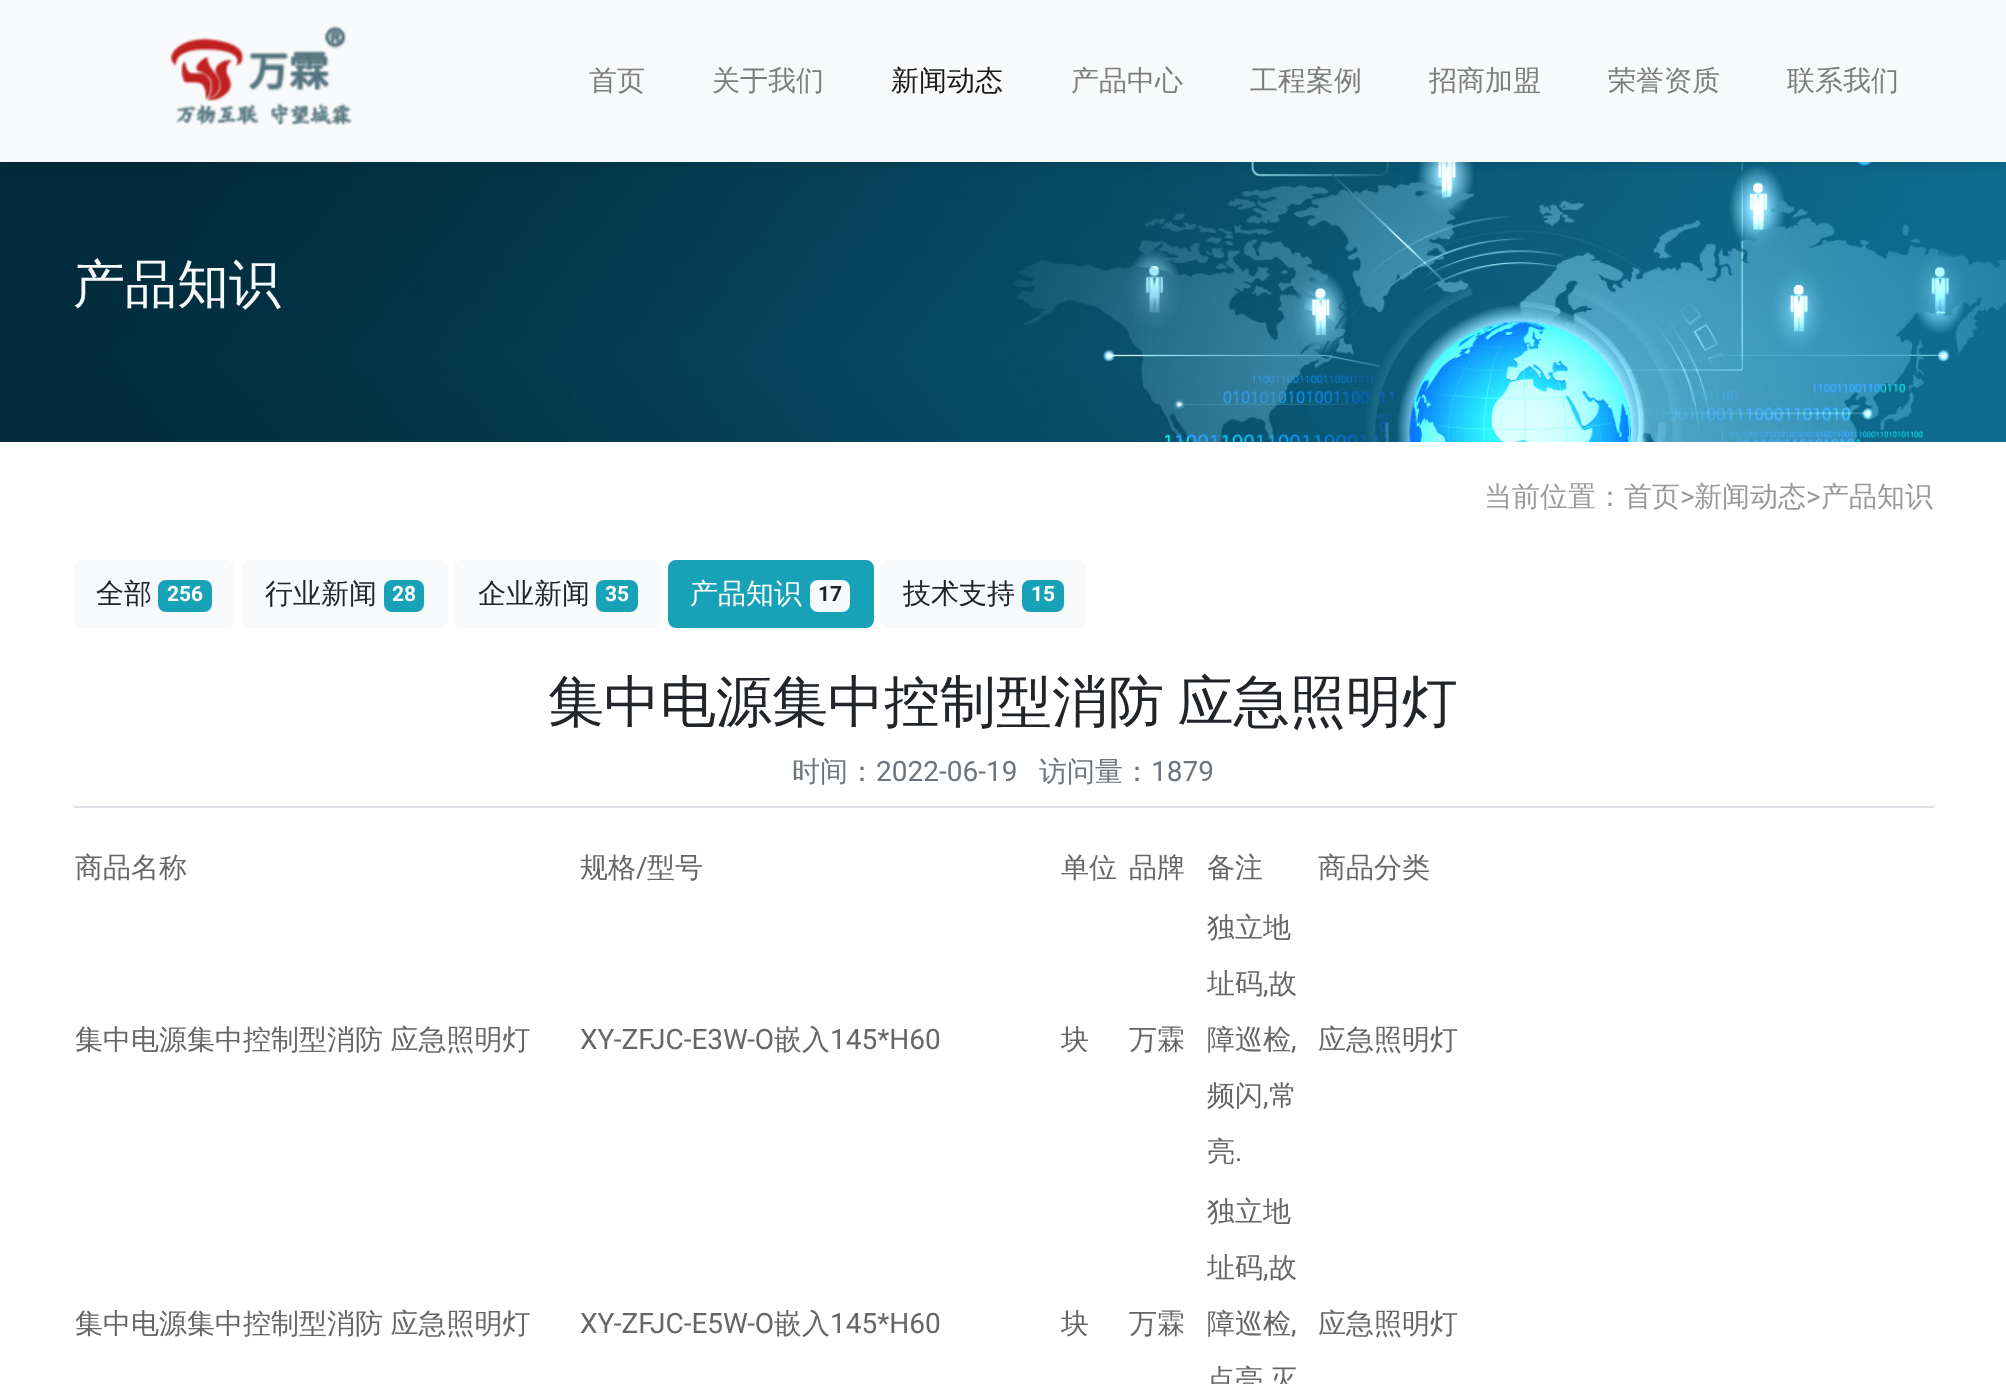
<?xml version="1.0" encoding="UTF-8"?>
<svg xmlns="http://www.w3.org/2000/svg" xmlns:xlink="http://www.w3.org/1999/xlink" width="2006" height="1384">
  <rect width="100%" height="100%" fill="#ffffff" />
  <image x="0" y="162" width="2006" height="280" xlink:href="image2.png" />
  <rect y="4" width="2006" height="162" fill="#000000" fill-opacity="0.07" filter="blur(3.5px)" />
  <rect width="2006" height="162" fill="#f8f9fa" />
  <image x="170" y="25" width="182" height="100" xlink:href="image1.png" />
  <rect x="74" y="560" width="160" height="68" rx="8" fill="#f8f9fa" />
  <rect x="158" y="580" width="54" height="32" rx="8" fill="#17a2b8" />
  <rect x="242" y="560" width="206" height="68" rx="8" fill="#f8f9fa" />
  <rect x="384" y="580" width="40" height="32" rx="8" fill="#17a2b8" />
  <rect x="454" y="560" width="206" height="68" rx="8" fill="#f8f9fa" />
  <rect x="596" y="580" width="42" height="32" rx="8" fill="#17a2b8" />
  <rect x="669" y="561" width="204" height="66" rx="7" fill="#17a2b8" stroke="#17a2b8" stroke-width="2" />
  <rect x="810" y="580" width="40" height="32" rx="8" fill="#f8f9fa" />
  <rect x="880" y="560" width="206" height="68" rx="8" fill="#f8f9fa" />
  <rect x="1022" y="580" width="42" height="32" rx="8" fill="#17a2b8" />
  <rect x="74" y="806" width="1860" height="2" fill="#dee2e6" />
  <text x="589" y="90" style="font-family: WenQuanYi Zen Hei; font-size: 28px; font-weight: 500; fill: #7c7d7d">首页</text>
  <text x="712" y="90" style="font-family: WenQuanYi Zen Hei; font-size: 28px; font-weight: 500; fill: #7c7d7d">关于我们</text>
  <text x="891" y="90" style="font-family: WenQuanYi Zen Hei; font-size: 28px; font-weight: 500; fill: #191919">新闻动态</text>
  <text x="1071" y="90" style="font-family: WenQuanYi Zen Hei; font-size: 28px; font-weight: 500; fill: #7c7d7d">产品中心</text>
  <text x="1250" y="90" style="font-family: WenQuanYi Zen Hei; font-size: 28px; font-weight: 500; fill: #7c7d7d">工程案例</text>
  <text x="1429" y="90" style="font-family: WenQuanYi Zen Hei; font-size: 28px; font-weight: 500; fill: #7c7d7d">招商加盟</text>
  <text x="1608" y="90" style="font-family: WenQuanYi Zen Hei; font-size: 28px; font-weight: 500; fill: #7c7d7d">荣誉资质</text>
  <text x="1787" y="90" style="font-family: WenQuanYi Zen Hei; font-size: 28px; font-weight: 500; fill: #7c7d7d">联系我们</text>
  <text x="73" y="302" style="font-family: WenQuanYi Zen Hei; font-size: 52px; font-weight: 500; fill: #f8f9fa">产品知识</text>
  <text x="1484" y="506" style="font-family: WenQuanYi Zen Hei; font-size: 28px; font-weight: 500; fill: #999999">当前位置：首页</text>
  <text x="1680" y="506" style="font-family: Roboto; font-size: 28px; fill: #999999">&gt;</text>
  <text x="1694" y="506" style="font-family: WenQuanYi Zen Hei; font-size: 28px; font-weight: 500; fill: #999999">新闻动态</text>
  <text x="1806" y="506" style="font-family: Roboto; font-size: 28px; fill: #999999">&gt;</text>
  <text x="1821" y="506" style="font-family: WenQuanYi Zen Hei; font-size: 28px; font-weight: 500; fill: #999999">产品知识</text>
  <text x="96" y="603" style="font-family: WenQuanYi Zen Hei; font-size: 28px; font-weight: 500; fill: #212529">全部</text>
  <text x="167" y="601" style="font-family: Roboto; font-size: 21px; font-weight: bold; fill: #ffffff">256</text>
  <text x="265" y="603" style="font-family: WenQuanYi Zen Hei; font-size: 28px; font-weight: 500; fill: #212529">行业新闻</text>
  <text x="392" y="601" style="font-family: Roboto; font-size: 21px; font-weight: bold; fill: #ffffff">28</text>
  <text x="478" y="603" style="font-family: WenQuanYi Zen Hei; font-size: 28px; font-weight: 500; fill: #212529">企业新闻</text>
  <text x="605" y="601" style="font-family: Roboto; font-size: 21px; font-weight: bold; fill: #ffffff">35</text>
  <text x="690" y="603" style="font-family: WenQuanYi Zen Hei; font-size: 28px; font-weight: 500; fill: #ffffff">产品知识</text>
  <text x="818" y="601" style="font-family: Roboto; font-size: 21px; font-weight: bold; fill: #212529">17</text>
  <text x="903" y="603" style="font-family: WenQuanYi Zen Hei; font-size: 28px; font-weight: 500; fill: #212529">技术支持</text>
  <text x="1031" y="601" style="font-family: Roboto; font-size: 21px; font-weight: bold; fill: #ffffff">15</text>
  <text x="548" y="721" word-spacing="-3" style="font-family: WenQuanYi Zen Hei; font-size: 56px; font-weight: 500; fill: #212529">集中电源集中控制型消防 应急照明灯</text>
  <text x="792" y="781" style="font-family: WenQuanYi Zen Hei; font-size: 28px; font-weight: 500; fill: #6c757d">时间：</text>
  <text x="876" y="781" style="font-family: Roboto; font-size: 28px; fill: #6c757d">2022-06-19</text>
  <text x="1039" y="781" style="font-family: WenQuanYi Zen Hei; font-size: 28px; font-weight: 500; fill: #6c757d">访问量：</text>
  <text x="1151" y="781" style="font-family: Roboto; font-size: 28px; fill: #6c757d">1879</text>
  <text x="75" y="877" style="font-family: WenQuanYi Zen Hei; font-size: 28px; font-weight: 500; fill: #666666">商品名称</text>
  <text x="580" y="877" style="font-family: WenQuanYi Zen Hei; font-size: 28px; font-weight: 500; fill: #666666">规格</text>
  <text x="636" y="877" style="font-family: Roboto; font-size: 28px; fill: #666666">/</text>
  <text x="647" y="877" style="font-family: WenQuanYi Zen Hei; font-size: 28px; font-weight: 500; fill: #666666">型号</text>
  <text x="1061" y="877" style="font-family: WenQuanYi Zen Hei; font-size: 28px; font-weight: 500; fill: #666666">单位</text>
  <text x="1129" y="877" style="font-family: WenQuanYi Zen Hei; font-size: 28px; font-weight: 500; fill: #666666">品牌</text>
  <text x="1207" y="877" style="font-family: WenQuanYi Zen Hei; font-size: 28px; font-weight: 500; fill: #666666">备注</text>
  <text x="1318" y="877" style="font-family: WenQuanYi Zen Hei; font-size: 28px; font-weight: 500; fill: #666666">商品分类</text>
  <text x="75" y="1049" word-spacing="-1" style="font-family: WenQuanYi Zen Hei; font-size: 28px; font-weight: 500; fill: #666666">集中电源集中控制型消防 应急照明灯</text>
  <text x="580" y="1049" style="font-family: Roboto; font-size: 28px; fill: #666666">XY-ZFJC-E3W-O</text>
  <text x="774" y="1049" style="font-family: WenQuanYi Zen Hei; font-size: 28px; font-weight: 500; fill: #666666">嵌入</text>
  <text x="830" y="1049" style="font-family: Roboto; font-size: 28px; fill: #666666">145*H60</text>
  <text x="1061" y="1049" style="font-family: WenQuanYi Zen Hei; font-size: 28px; font-weight: 500; fill: #666666">块</text>
  <text x="1129" y="1049" style="font-family: WenQuanYi Zen Hei; font-size: 28px; font-weight: 500; fill: #666666">万霖</text>
  <text x="1207" y="937" style="font-family: WenQuanYi Zen Hei; font-size: 28px; font-weight: 500; fill: #666666">独立地</text>
  <text x="1207" y="993" style="font-family: WenQuanYi Zen Hei; font-size: 28px; font-weight: 500; fill: #666666">址码</text>
  <text x="1263" y="993" style="font-family: Roboto; font-size: 28px; fill: #666666">,</text>
  <text x="1269" y="993" style="font-family: WenQuanYi Zen Hei; font-size: 28px; font-weight: 500; fill: #666666">故</text>
  <text x="1207" y="1049" style="font-family: WenQuanYi Zen Hei; font-size: 28px; font-weight: 500; fill: #666666">障巡检</text>
  <text x="1291" y="1049" style="font-family: Roboto; font-size: 28px; fill: #666666">,</text>
  <text x="1207" y="1105" style="font-family: WenQuanYi Zen Hei; font-size: 28px; font-weight: 500; fill: #666666">频闪</text>
  <text x="1263" y="1105" style="font-family: Roboto; font-size: 28px; fill: #666666">,</text>
  <text x="1269" y="1105" style="font-family: WenQuanYi Zen Hei; font-size: 28px; font-weight: 500; fill: #666666">常</text>
  <text x="1207" y="1161" style="font-family: WenQuanYi Zen Hei; font-size: 28px; font-weight: 500; fill: #666666">亮</text>
  <text x="1235" y="1161" style="font-family: Roboto; font-size: 28px; fill: #666666">.</text>
  <text x="1318" y="1049" style="font-family: WenQuanYi Zen Hei; font-size: 28px; font-weight: 500; fill: #666666">应急照明灯</text>
  <text x="75" y="1333" word-spacing="-1" style="font-family: WenQuanYi Zen Hei; font-size: 28px; font-weight: 500; fill: #666666">集中电源集中控制型消防 应急照明灯</text>
  <text x="580" y="1333" style="font-family: Roboto; font-size: 28px; fill: #666666">XY-ZFJC-E5W-O</text>
  <text x="774" y="1333" style="font-family: WenQuanYi Zen Hei; font-size: 28px; font-weight: 500; fill: #666666">嵌入</text>
  <text x="830" y="1333" style="font-family: Roboto; font-size: 28px; fill: #666666">145*H60</text>
  <text x="1061" y="1333" style="font-family: WenQuanYi Zen Hei; font-size: 28px; font-weight: 500; fill: #666666">块</text>
  <text x="1129" y="1333" style="font-family: WenQuanYi Zen Hei; font-size: 28px; font-weight: 500; fill: #666666">万霖</text>
  <text x="1207" y="1221" style="font-family: WenQuanYi Zen Hei; font-size: 28px; font-weight: 500; fill: #666666">独立地</text>
  <text x="1207" y="1277" style="font-family: WenQuanYi Zen Hei; font-size: 28px; font-weight: 500; fill: #666666">址码</text>
  <text x="1263" y="1277" style="font-family: Roboto; font-size: 28px; fill: #666666">,</text>
  <text x="1269" y="1277" style="font-family: WenQuanYi Zen Hei; font-size: 28px; font-weight: 500; fill: #666666">故</text>
  <text x="1207" y="1333" style="font-family: WenQuanYi Zen Hei; font-size: 28px; font-weight: 500; fill: #666666">障巡检</text>
  <text x="1291" y="1333" style="font-family: Roboto; font-size: 28px; fill: #666666">,</text>
  <text x="1207" y="1389" style="font-family: WenQuanYi Zen Hei; font-size: 28px; font-weight: 500; fill: #666666">点亮</text>
  <text x="1269" y="1389" style="font-family: WenQuanYi Zen Hei; font-size: 28px; font-weight: 500; fill: #666666">灭</text>
  <text x="1318" y="1333" style="font-family: WenQuanYi Zen Hei; font-size: 28px; font-weight: 500; fill: #666666">应急照明灯</text>
</svg>
